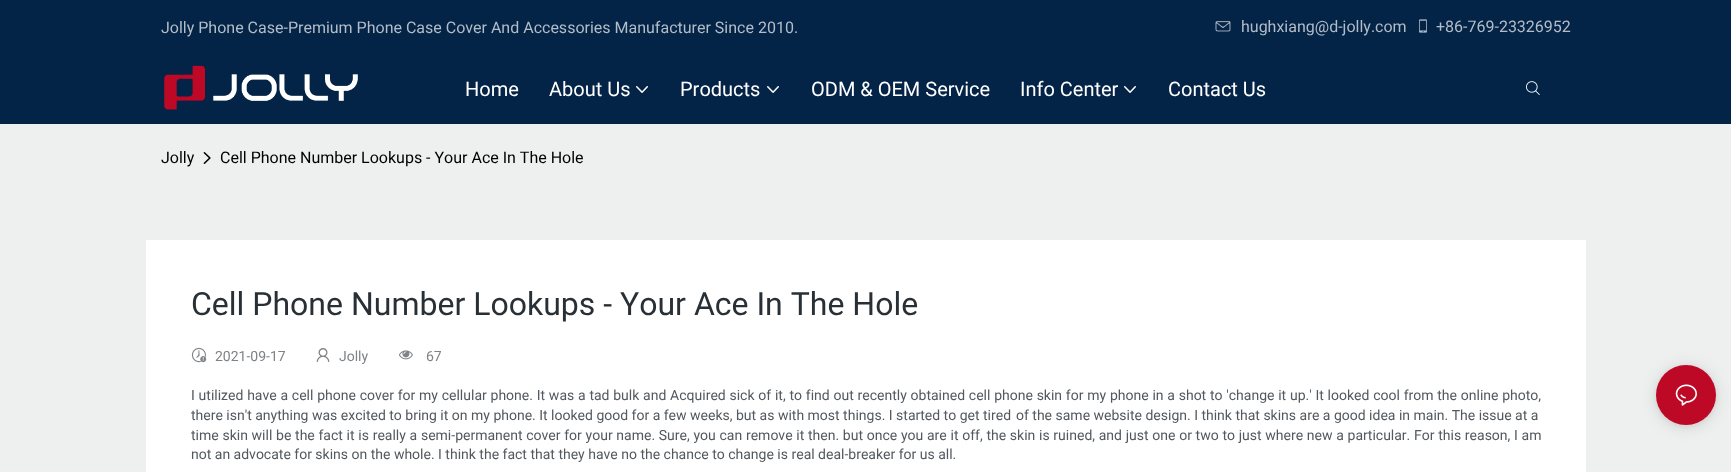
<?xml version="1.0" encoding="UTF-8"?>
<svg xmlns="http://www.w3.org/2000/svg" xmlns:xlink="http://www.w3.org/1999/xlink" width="1731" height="472">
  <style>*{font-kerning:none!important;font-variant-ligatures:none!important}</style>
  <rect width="100%" height="100%" fill="#eeefef" />
  <rect width="1731" height="124" fill="#032347" />
  <image x="1215" y="21" width="16" height="11" xlink:href="image1.png" />
  <image x="1419" y="19" width="8" height="14" xlink:href="image2.png" />
  <image x="164" y="65" width="194" height="45" xlink:href="image3.png" />
  <image x="636" y="86" width="12" height="7" xlink:href="image4.png" />
  <image x="767" y="86" width="12" height="7" xlink:href="image4.png" />
  <image x="1124" y="86" width="12" height="7" xlink:href="image4.png" />
  <image x="1526" y="81" width="14" height="14" xlink:href="image5.png" />
  <image x="203" y="152" width="8" height="12" xlink:href="image6.png" />
  <rect x="146" y="240" width="1440" height="232" fill="#ffffff" />
  <image x="191" y="347" width="16" height="16" xlink:href="image7.png" />
  <image x="316" y="348" width="14" height="14" xlink:href="image8.png" />
  <image x="399" y="350" width="14" height="10" xlink:href="image9.png" />
  <rect x="1656" y="367" width="60" height="60" rx="30" fill="#000000" fill-opacity="0.12" filter="blur(8px)" />
  <rect x="1656" y="366" width="60" height="60" rx="30" fill="#000000" fill-opacity="0.06" filter="blur(2px)" />
  <circle cx="1686" cy="395" r="30" fill="#bd0826" />
  <image x="1675" y="384" width="22" height="22" xlink:href="image10.png" />
  <text x="161" y="33" style="font-family: Roboto; font-size: 16px; fill: #b3bdc8">Jolly Phone Case-Premium Phone Case Cover And Accessories Manufacturer Since 2010.</text>
  <text x="1241" y="32" style="font-family: Roboto; font-size: 16px; fill: #b3bdc8">hughxiang@d-jolly.com</text>
  <text x="1436" y="32" style="font-family: Roboto; font-size: 16px; fill: #b3bdc8">+86-769-23326952</text>
  <text x="465" y="96" style="font-family: Roboto; font-size: 20px; fill: #ffffff">Home</text>
  <text x="549" y="96" style="font-family: Roboto; font-size: 20px; fill: #ffffff">About Us</text>
  <text x="680" y="96" style="font-family: Roboto; font-size: 20px; fill: #ffffff">Products</text>
  <text x="811" y="96" style="font-family: Roboto; font-size: 20px; fill: #ffffff">ODM &amp; OEM Service</text>
  <text x="1020" y="96" style="font-family: Roboto; font-size: 20px; fill: #ffffff">Info Center</text>
  <text x="1168" y="96" style="font-family: Roboto; font-size: 20px; fill: #ffffff">Contact Us</text>
  <text x="161" y="163" style="font-family: Roboto; font-size: 16px; fill: #000000">Jolly</text>
  <text x="220" y="163" style="font-family: Roboto; font-size: 16px; fill: #000000">Cell Phone Number Lookups - Your Ace In The Hole</text>
  <text x="191" y="315" style="font-family: Roboto; font-size: 32px; fill: #283036">Cell Phone Number Lookups - Your Ace In The Hole</text>
  <text x="215" y="361" style="font-family: Roboto; font-size: 14px; fill: #7e8386">2021-09-17</text>
  <text x="339" y="361" style="font-family: Roboto; font-size: 14px; fill: #7e8386">Jolly</text>
  <text x="426" y="361" style="font-family: Roboto; font-size: 14px; fill: #7e8386">67</text>
  <text x="191" y="400" word-spacing="0.3" style="font-family: Roboto; font-size: 14px; fill: #53595e">I utilized have a cell phone cover for my cellular phone. It was a tad bulk and Acquired sick of it, to find out recently obtained cell phone skin for my phone in a shot to 'change it up.' It looked cool from the online photo,</text>
  <text x="191" y="420" style="font-family: Roboto; font-size: 14px; fill: #53595e">there isn't anything was excited to bring it on my phone. It looked good for a few weeks, but as with most things. I started to get tired</text>
  <text x="1016" y="420" style="font-family: Roboto; font-size: 14px; fill: #53595e">of the same website design. I think that skins are a good idea in main. The issue at a</text>
  <text x="191" y="440" word-spacing="0.25" style="font-family: Roboto; font-size: 14px; fill: #53595e">time skin will be the fact it is really a semi-permanent cover for your name. Sure, you can remove it then. but once you are it off, the skin is ruined, and just one or two to just where new a particular. For this reason, I am</text>
  <text x="191" y="459" style="font-family: Roboto; font-size: 14px; fill: #53595e">not an advocate for skins on the whole. I think the fact that they have no the chance to change is real deal-breaker for us all.</text>
</svg>
